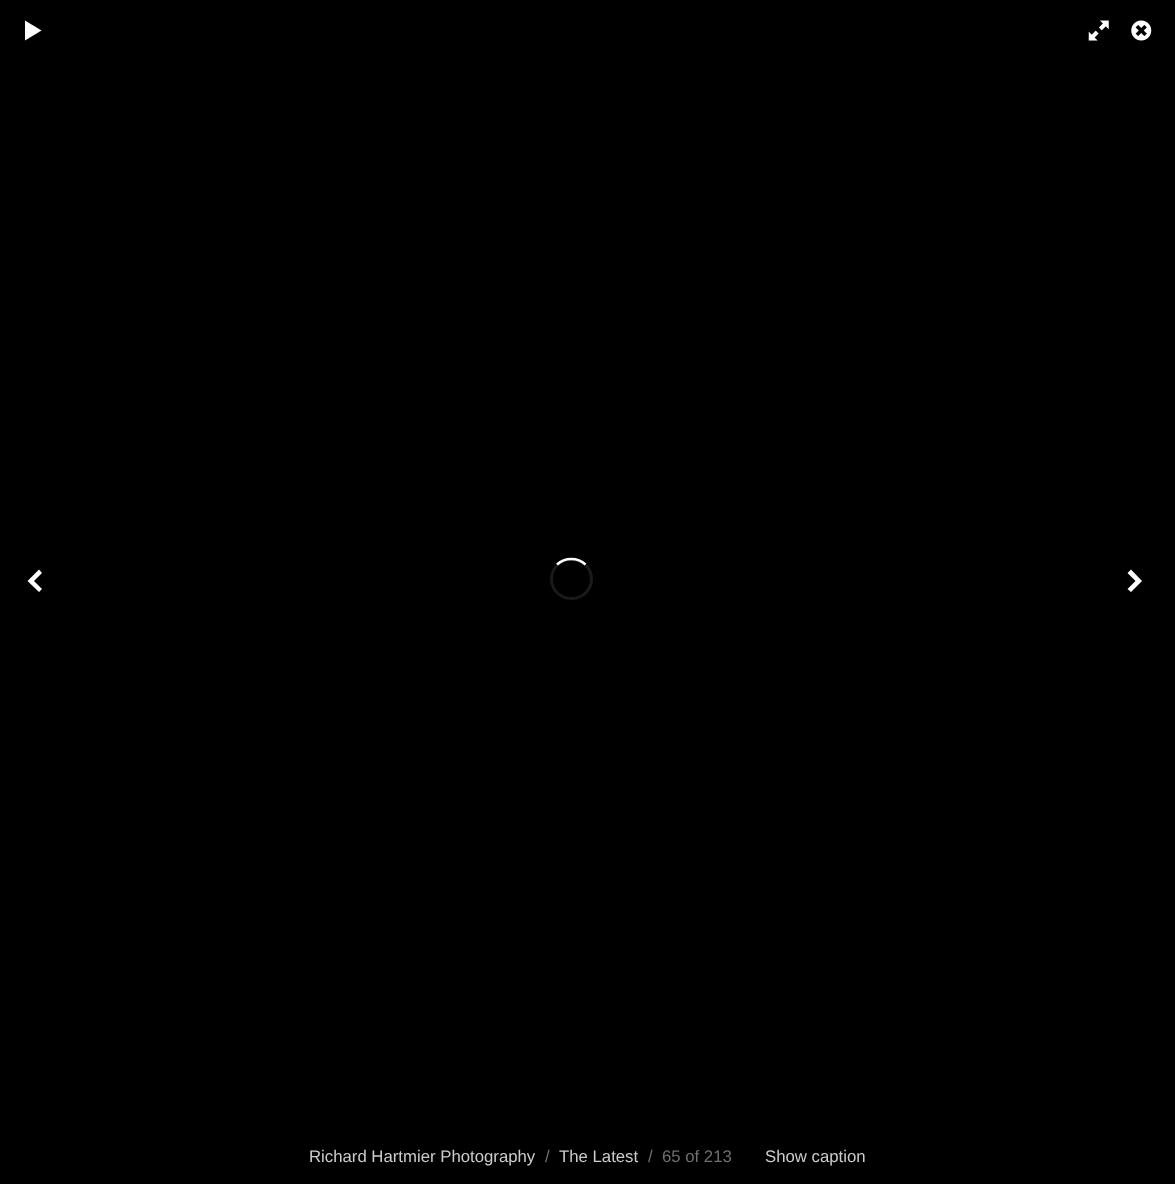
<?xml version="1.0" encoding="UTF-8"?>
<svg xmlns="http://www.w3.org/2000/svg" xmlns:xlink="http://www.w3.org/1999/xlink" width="1175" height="1184">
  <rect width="100%" height="100%" fill="#000000" />
  <path d="M 25 40.5 v -20 l 16.5 10 z" fill="#ffffff" />
  <image x="1088" y="20" width="21" height="21" xlink:href="image1.png" />
  <image x="1131" y="20" width="21" height="21" xlink:href="image2.png" />
  <path d="M 27.5 581 l 11.5 -11.5 l 3 3.5 l -8 8 l 8 8 l -3 3 z" fill="#ffffff" />
  <rect x="551.5" y="559.5" width="40" height="39" rx="19.5" fill="none" stroke="#1a1a1a" stroke-width="3" />
  <path d="M 557 564.5 c 8 -7.5 20.5 -7.5 28.5 0" fill="none" stroke="#ffffff" stroke-width="2.5" />
  <path d="M 1127.5 589 l 8 -8 l -8 -8 l 3.5 -3.5 l 11 11.5 l -11 11 z" fill="#ffffff" />
  <text x="309" y="1162" style="font-family: Liberation Sans; font-size: 16.75px; fill: #cccccc">Richard Hartmier Photography</text>
  <text x="545" y="1162" style="font-family: Liberation Sans; font-size: 16.75px; fill: #707070">/</text>
  <text x="559" y="1162" style="font-family: Liberation Sans; font-size: 16.75px; fill: #cccccc">The Latest</text>
  <text x="648" y="1162" style="font-family: Liberation Sans; font-size: 16.75px; fill: #707070" xml:space="preserve">/  65 of 213</text>
  <text x="765" y="1162" style="font-family: Liberation Sans; font-size: 16.75px; fill: #cccccc">Show caption</text>
</svg>
